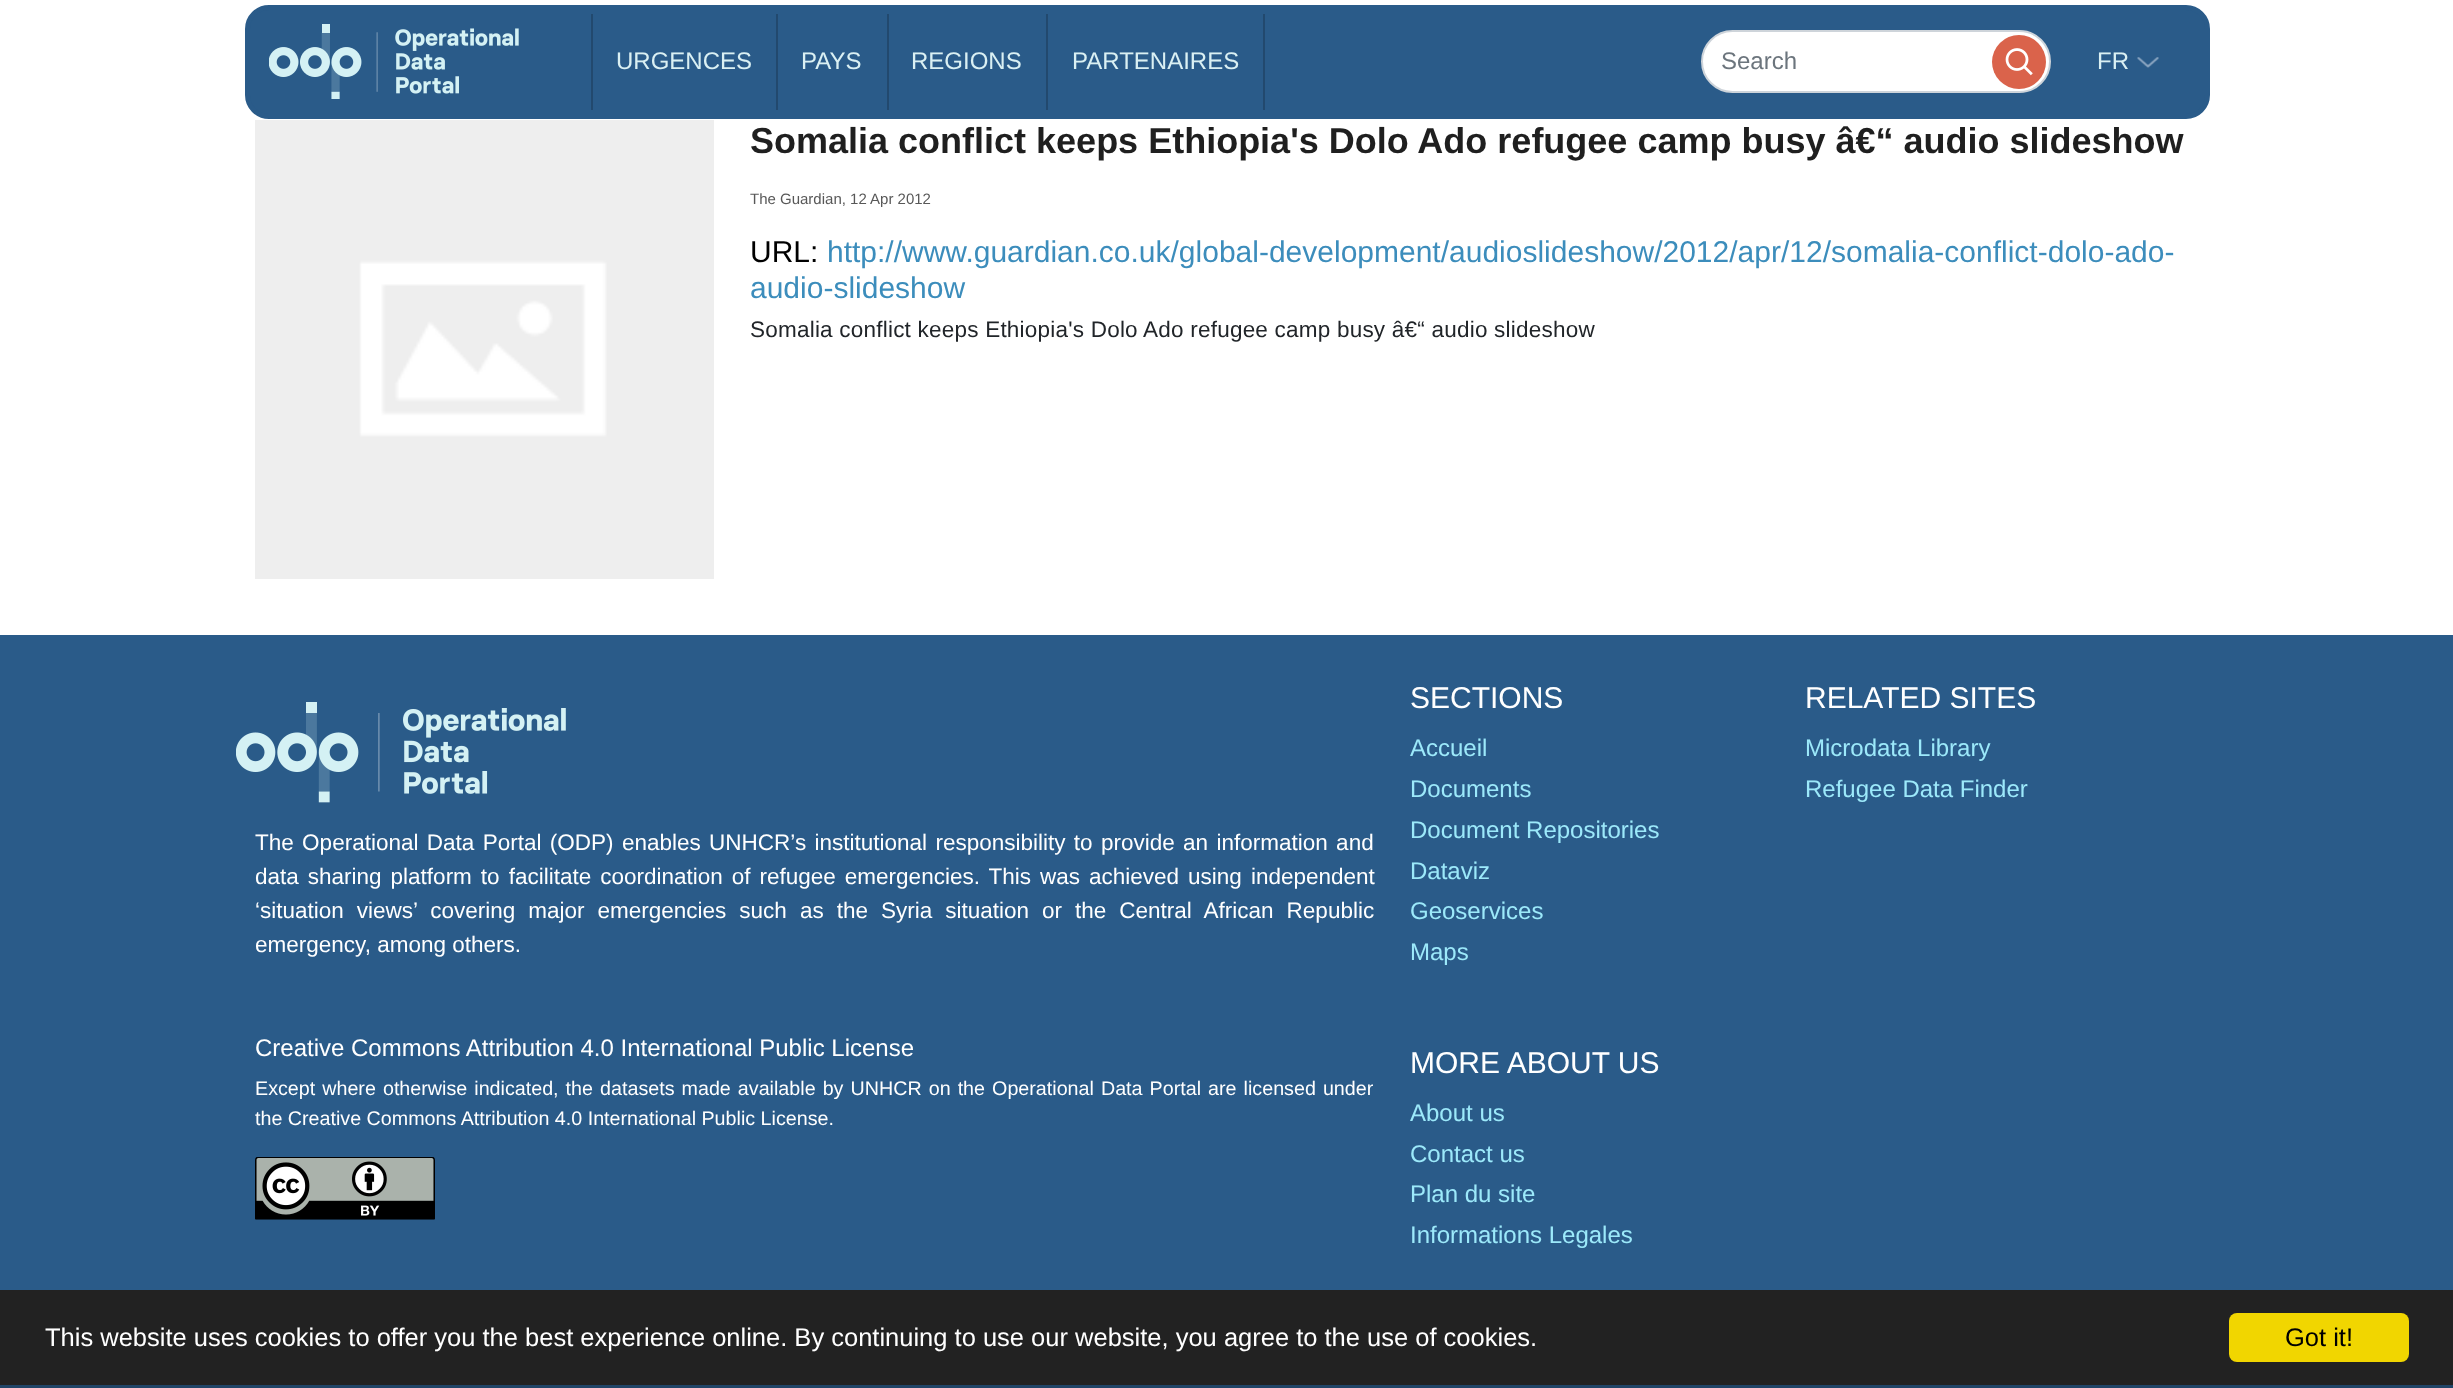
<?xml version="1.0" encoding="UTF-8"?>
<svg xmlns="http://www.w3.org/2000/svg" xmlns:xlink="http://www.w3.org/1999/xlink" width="2453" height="1388">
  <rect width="100%" height="100%" fill="#ffffff" />
  <rect x="247.5" y="7.5" width="1960" height="109" rx="21.5" fill="#2a5b89" stroke="#2a5b89" stroke-width="5" />
  <image x="269" y="24" width="250" height="75" xlink:href="image1.png" />
  <rect x="591" y="14" width="2" height="96" fill="#22496e" />
  <rect x="776" y="14" width="2" height="96" fill="#22496e" />
  <rect x="887" y="14" width="2" height="96" fill="#22496e" />
  <rect x="1263" y="14" width="2" height="96" fill="#22496e" />
  <rect x="1046" y="14" width="2" height="96" fill="#22496e" />
  <rect x="1702" y="31" width="348" height="61" rx="30.5" fill="#ffffff" stroke="#ced4da" stroke-width="2" />
  <circle cx="2019" cy="62" r="27" fill="#da634b" />
  <image x="2005" y="48" width="28" height="28" xlink:href="image2.png" />
  <image x="2137" y="57" width="22" height="11" xlink:href="image3.png" />
  <image x="255" y="120" width="459" height="459" xlink:href="image4.png" />
  <rect y="635" width="2453" height="655" fill="#2a5b89" />
  <image x="236" y="702" width="330" height="101" xlink:href="image5.png" />
  <image x="255" y="1157" width="180" height="63" xlink:href="image6.png" />
  <rect y="1385" width="2453" height="3" fill="#204467" />
  <rect y="1290" width="2453" height="95" fill="#222222" />
  <rect x="2229" y="1313" width="180" height="49" rx="8" fill="#f1d600" />
  <text x="616" y="69" style="font-family: Liberation Sans; font-size: 24px; fill: #daf0f3">URGENCES</text>
  <text x="801" y="69" style="font-family: Liberation Sans; font-size: 24px; fill: #daf0f3">PAYS</text>
  <text x="911" y="69" style="font-family: Liberation Sans; font-size: 24px; fill: #daf0f3">REGIONS</text>
  <text x="1072" y="69" style="font-family: Liberation Sans; font-size: 24px; fill: #daf0f3">PARTENAIRES</text>
  <text x="1721" y="69" style="font-family: Liberation Sans; font-size: 24px; fill: #6c757d">Search</text>
  <text x="2097" y="69" style="font-family: Liberation Sans; font-size: 24px; fill: #daf0f3">FR</text>
  <text x="750" y="153" style="font-family: Liberation Sans; font-size: 36px; font-weight: bold; fill: #1f1f1f">Somalia conflict keeps Ethiopia's Dolo Ado refugee camp busy â€“ audio slideshow</text>
  <text x="750" y="204" style="font-family: Liberation Sans; font-size: 15px; fill: #585858">The Guardian, 12 Apr 2012</text>
  <text x="750" y="262" style="font-family: Liberation Sans; font-size: 30px; fill: #000000">URL:</text>
  <text x="827" y="262" style="font-family: Liberation Sans; font-size: 30px; fill: #3c8dbc">http://www.guardian.co.uk/global-development/audioslideshow/2012/apr/12/somalia-conflict-dolo-ado-</text>
  <text x="750" y="298" style="font-family: Liberation Sans; font-size: 30px; fill: #3c8dbc">audio-slideshow</text>
  <text x="750" y="337" style="font-family: Liberation Sans; font-size: 22.5px; letter-spacing: 0.22px; fill: #212529">Somalia conflict keeps Ethiopia's Dolo Ado refugee camp busy â€“ audio slideshow</text>
  <text x="255" y="850" word-spacing="2.1" style="font-family: Liberation Sans; font-size: 22.5px; fill: #ffffff">The Operational Data Portal (ODP) enables UNHCR’s institutional responsibility to provide an information and</text>
  <text x="255" y="884" word-spacing="2.75" style="font-family: Liberation Sans; font-size: 22.5px; fill: #ffffff">data sharing platform to facilitate coordination of refugee emergencies. This was achieved using independent</text>
  <text x="255" y="918" word-spacing="6.75" style="font-family: Liberation Sans; font-size: 22.5px; fill: #ffffff">‘situation views’ covering major emergencies such as the Syria situation or the Central African Republic</text>
  <text x="255" y="952" style="font-family: Liberation Sans; font-size: 22.5px; fill: #ffffff">emergency, among others.</text>
  <text x="255" y="1056" style="font-family: Liberation Sans; font-size: 24px; fill: #ffffff">Creative Commons Attribution 4.0 International Public License</text>
  <text x="255" y="1095" word-spacing="1.6" style="font-family: Liberation Sans; font-size: 19.7px; fill: #ffffff">Except where otherwise indicated, the datasets made available by UNHCR on the Operational Data Portal are licensed under</text>
  <text x="255" y="1125" style="font-family: Liberation Sans; font-size: 19.7px; fill: #ffffff">the Creative Commons Attribution 4.0 International Public License.</text>
  <text x="1410" y="708" style="font-family: Liberation Sans; font-size: 30px; fill: #ffffff">SECTIONS</text>
  <text x="1410" y="756" style="font-family: Liberation Sans; font-size: 24px; fill: #9ce9fa">Accueil</text>
  <text x="1410" y="797" style="font-family: Liberation Sans; font-size: 24px; fill: #9ce9fa">Documents</text>
  <text x="1410" y="838" style="font-family: Liberation Sans; font-size: 24px; fill: #9ce9fa">Document Repositories</text>
  <text x="1410" y="879" style="font-family: Liberation Sans; font-size: 24px; fill: #9ce9fa">Dataviz</text>
  <text x="1410" y="919" style="font-family: Liberation Sans; font-size: 24px; fill: #9ce9fa">Geoservices</text>
  <text x="1410" y="960" style="font-family: Liberation Sans; font-size: 24px; fill: #9ce9fa">Maps</text>
  <text x="1805" y="708" style="font-family: Liberation Sans; font-size: 30px; fill: #ffffff">RELATED SITES</text>
  <text x="1805" y="756" style="font-family: Liberation Sans; font-size: 24px; fill: #9ce9fa">Microdata Library</text>
  <text x="1805" y="797" style="font-family: Liberation Sans; font-size: 24px; fill: #9ce9fa">Refugee Data Finder</text>
  <text x="1410" y="1073" style="font-family: Liberation Sans; font-size: 30px; fill: #ffffff">MORE ABOUT US</text>
  <text x="1410" y="1121" style="font-family: Liberation Sans; font-size: 24px; fill: #9ce9fa">About us</text>
  <text x="1410" y="1162" style="font-family: Liberation Sans; font-size: 24px; fill: #9ce9fa">Contact us</text>
  <text x="1410" y="1202" style="font-family: Liberation Sans; font-size: 24px; fill: #9ce9fa">Plan du site</text>
  <text x="1410" y="1243" style="font-family: Liberation Sans; font-size: 24px; fill: #9ce9fa">Informations Legales</text>
  <text x="45" y="1346" style="font-family: Liberation Sans; font-size: 25.5px; fill: #ffffff">This website uses cookies to offer you the best experience online. By continuing to use our website, you agree to the use of cookies.</text>
  <text x="2285" y="1346" style="font-family: Liberation Sans; font-size: 25.5px; fill: #000000">Got it!</text>
</svg>
